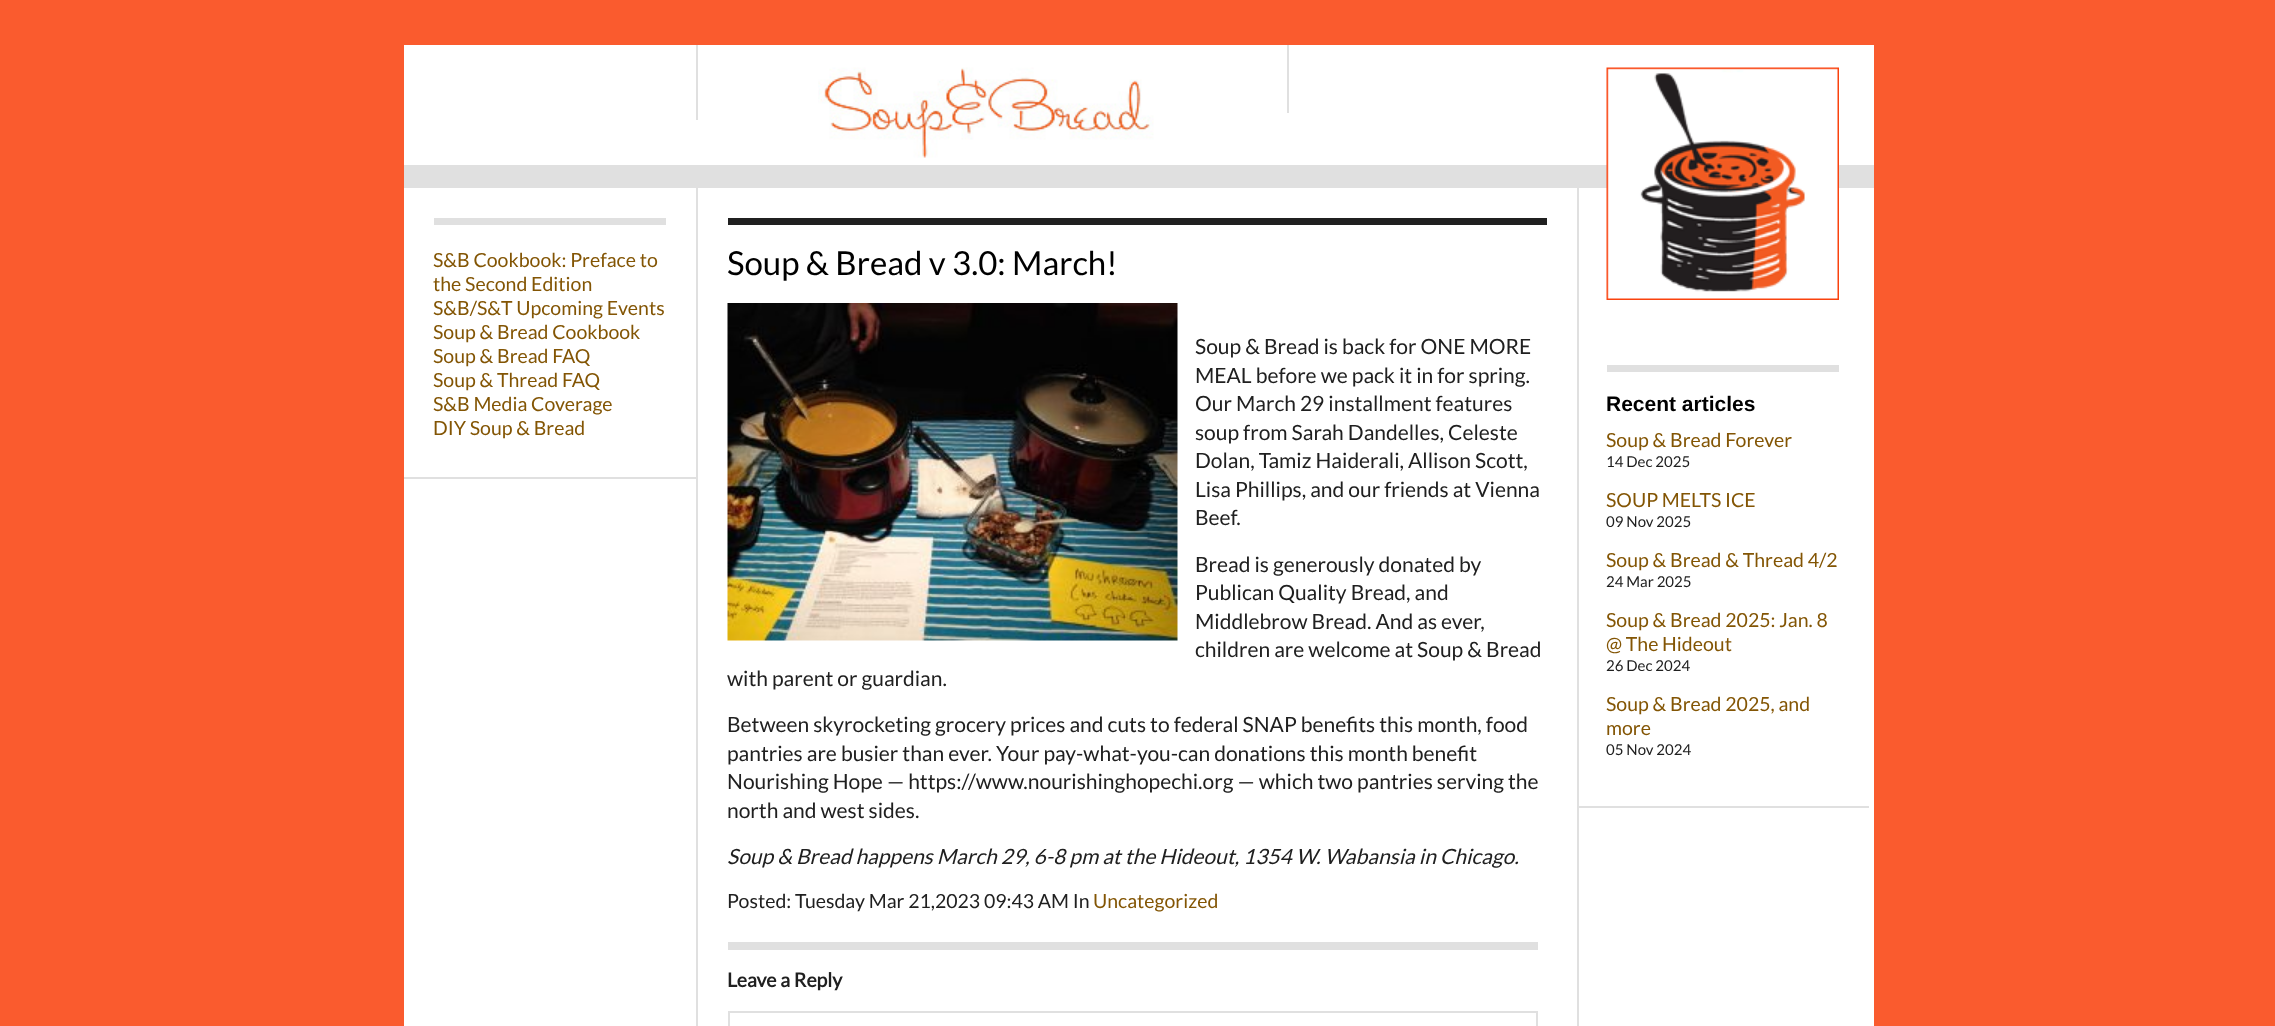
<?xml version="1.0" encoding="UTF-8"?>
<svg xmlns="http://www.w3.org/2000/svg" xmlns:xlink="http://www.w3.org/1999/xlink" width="2275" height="1026">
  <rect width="100%" height="100%" fill="#fa5b2e" />
  <rect x="404" y="45" width="1470" height="981" fill="#ffffff" />
  <rect x="404" y="165" width="1470" height="23" fill="#e0e0e0" />
  <rect x="696" y="45" width="2" height="75" fill="#e0e0e0" />
  <image x="818" y="67" width="336" height="91" xlink:href="image1.png" />
  <rect x="1287" y="45" width="2" height="68" fill="#e0e0e0" />
  <rect x="404" y="477" width="292" height="2" fill="#e0e0e0" />
  <rect x="434" y="218" width="232" height="7" fill="#e0e0e0" />
  <rect x="1577" y="188" width="2" height="838" fill="#e0e0e0" />
  <rect x="696" y="188" width="2" height="838" fill="#e0e0e0" />
  <rect x="728" y="218" width="819" height="7" fill="#202020" />
  <image x="727" y="303" width="451" height="338" xlink:href="image2.png" />
  <rect x="728" y="942" width="810" height="8" fill="#e0e0e0" />
  <rect x="729" y="1012" width="808" height="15" fill="none" stroke="#e0e0e0" stroke-width="2" />
  <rect x="1577" y="806" width="292" height="2" fill="#e0e0e0" />
  <image x="1606" y="67" width="233" height="233" xlink:href="image3.png" />
  <rect x="1607" y="365" width="232" height="7" fill="#e0e0e0" />
  <text x="433" y="267" style="font-family: Lato; font-size: 19.5px; fill: #835504">S&amp;B Cookbook: Preface to</text>
  <text x="433" y="291" style="font-family: Lato; font-size: 19.5px; fill: #835504">the Second Edition</text>
  <text x="433" y="315" style="font-family: Lato; font-size: 19.5px; fill: #835504">S&amp;B/S&amp;T Upcoming Events</text>
  <text x="433" y="339" style="font-family: Lato; font-size: 19.5px; fill: #835504">Soup &amp; Bread Cookbook</text>
  <text x="433" y="363" style="font-family: Lato; font-size: 19.5px; fill: #835504">Soup &amp; Bread FAQ</text>
  <text x="433" y="387" style="font-family: Lato; font-size: 19.5px; fill: #835504">Soup &amp; Thread FAQ</text>
  <text x="433" y="411" style="font-family: Lato; font-size: 19.5px; fill: #835504">S&amp;B Media Coverage</text>
  <text x="433" y="435" style="font-family: Lato; font-size: 19.5px; fill: #835504">DIY Soup &amp; Bread</text>
  <text x="727" y="275" style="font-family: Lato; font-size: 33px; fill: #000000">Soup &amp; Bread v 3.0: March!</text>
  <text x="1195" y="354" style="font-family: Lato; font-size: 21px; fill: #202020">Soup &amp; Bread is back for ONE MORE</text>
  <text x="1195" y="383" style="font-family: Lato; font-size: 21px; fill: #202020">MEAL before we pack it in for spring.</text>
  <text x="1195" y="411" style="font-family: Lato; font-size: 21px; fill: #202020">Our March 29 installment features</text>
  <text x="1195" y="440" style="font-family: Lato; font-size: 21px; fill: #202020">soup from Sarah Dandelles, Celeste</text>
  <text x="1195" y="468" style="font-family: Lato; font-size: 21px; fill: #202020">Dolan, Tamiz Haiderali, Allison Scott,</text>
  <text x="1195" y="497" style="font-family: Lato; font-size: 21px; fill: #202020">Lisa Phillips, and our friends at Vienna</text>
  <text x="1195" y="525" style="font-family: Lato; font-size: 21px; fill: #202020">Beef.</text>
  <text x="1195" y="572" style="font-family: Lato; font-size: 21px; fill: #202020">Bread is generously donated by</text>
  <text x="1195" y="600" style="font-family: Lato; font-size: 21px; fill: #202020">Publican Quality Bread, and</text>
  <text x="1195" y="629" style="font-family: Lato; font-size: 21px; fill: #202020">Middlebrow Bread. And as ever,</text>
  <text x="1195" y="657" style="font-family: Lato; font-size: 21px; fill: #202020">children are welcome at Soup &amp; Bread</text>
  <text x="727" y="686" style="font-family: Lato; font-size: 21px; fill: #202020">with parent or guardian.</text>
  <text x="727" y="732" style="font-family: Lato; font-size: 21px; fill: #202020">Between skyrocketing grocery prices and cuts to federal SNAP benefits this month, food</text>
  <text x="727" y="761" style="font-family: Lato; font-size: 21px; fill: #202020">pantries are busier than ever. Your pay-what-you-can donations this month benefit</text>
  <text x="727" y="789" style="font-family: Lato; font-size: 21px; fill: #202020">Nourishing Hope — https://www.nourishinghopechi.org — which two pantries serving the</text>
  <text x="727" y="818" style="font-family: Lato; font-size: 21px; fill: #202020">north and west sides.</text>
  <text x="727" y="864" style="font-family: Lato; font-size: 21px; font-style: italic; fill: #202020">Soup &amp; Bread happens March 29, 6-8 pm at the Hideout, 1354 W. Wabansia in Chicago.</text>
  <text x="727" y="908" style="font-family: Lato; font-size: 19.5px; fill: #202020">Posted: Tuesday Mar 21,2023 09:43 AM In</text>
  <text x="1093" y="908" style="font-family: Lato; font-size: 19.5px; fill: #835504">Uncategorized</text>
  <text x="727" y="987" style="font-family: Lato; font-size: 19.5px; font-weight: bold; fill: #202020">Leave a Reply</text>
  <text x="1606" y="411" style="font-family: Liberation Sans; font-size: 21px; font-weight: bold; fill: #000000">Recent articles</text>
  <text x="1606" y="447" style="font-family: Lato; font-size: 19.5px; fill: #835504">Soup &amp; Bread Forever</text>
  <text x="1606" y="467" style="font-family: Lato; font-size: 15px; fill: #202020">14 Dec 2025</text>
  <text x="1606" y="507" style="font-family: Lato; font-size: 19.5px; fill: #835504">SOUP MELTS ICE</text>
  <text x="1606" y="527" style="font-family: Lato; font-size: 15px; fill: #202020">09 Nov 2025</text>
  <text x="1606" y="567" style="font-family: Lato; font-size: 19.5px; fill: #835504">Soup &amp; Bread &amp; Thread 4/2</text>
  <text x="1606" y="587" style="font-family: Lato; font-size: 15px; fill: #202020">24 Mar 2025</text>
  <text x="1606" y="627" style="font-family: Lato; font-size: 19.5px; fill: #835504">Soup &amp; Bread 2025: Jan. 8</text>
  <text x="1606" y="651" style="font-family: Lato; font-size: 19.5px; fill: #835504">@ The Hideout</text>
  <text x="1606" y="671" style="font-family: Lato; font-size: 15px; fill: #202020">26 Dec 2024</text>
  <text x="1606" y="711" style="font-family: Lato; font-size: 19.5px; fill: #835504">Soup &amp; Bread 2025, and</text>
  <text x="1606" y="735" style="font-family: Lato; font-size: 19.5px; fill: #835504">more</text>
  <text x="1606" y="755" style="font-family: Lato; font-size: 15px; fill: #202020">05 Nov 2024</text>
</svg>
